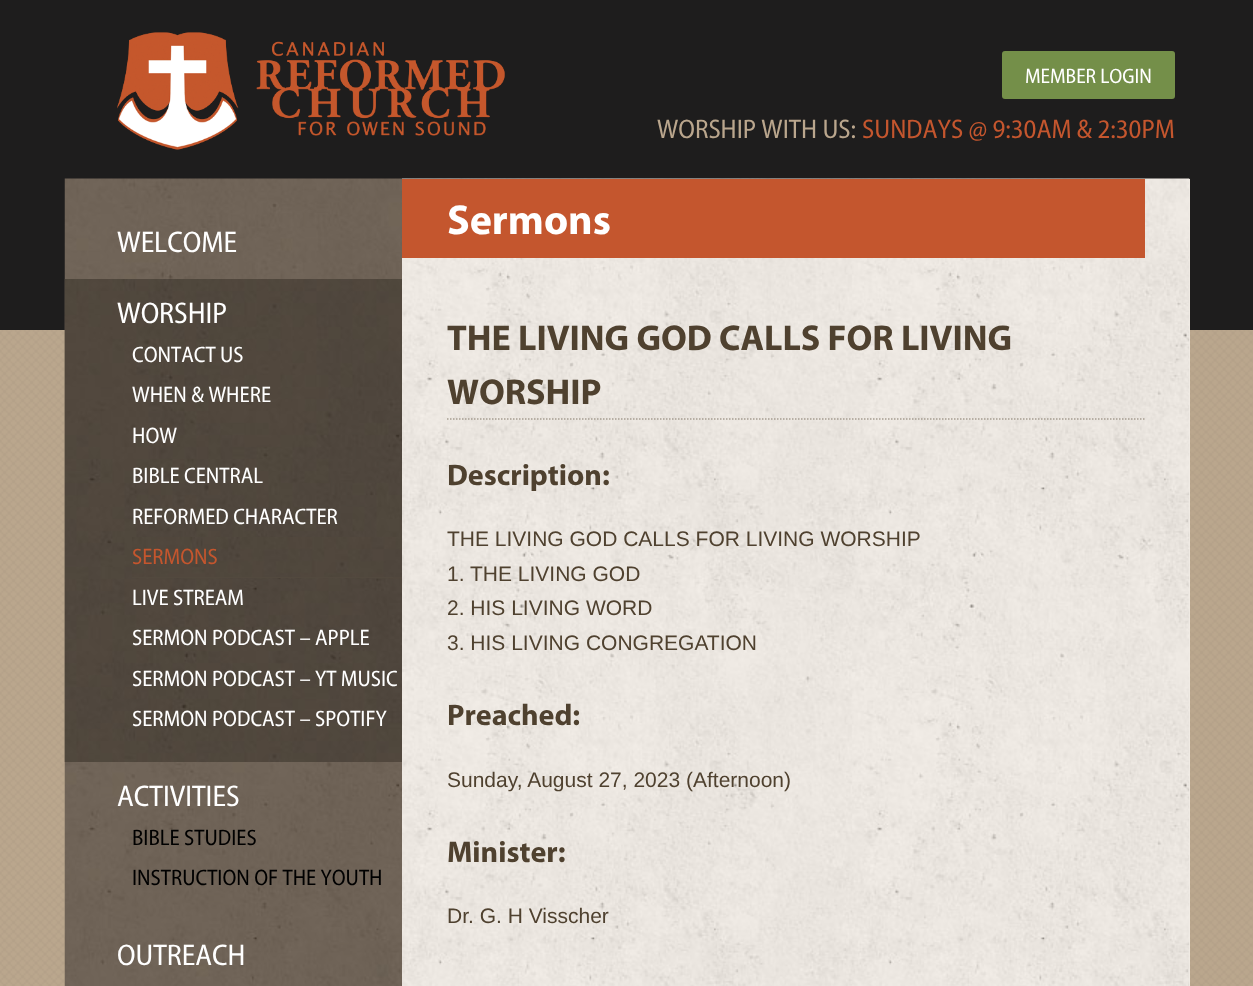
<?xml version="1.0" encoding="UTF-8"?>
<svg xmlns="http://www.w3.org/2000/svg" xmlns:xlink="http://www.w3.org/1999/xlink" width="1253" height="986">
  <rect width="100%" height="100%" fill="#ffffff" />
  <image x="0" y="330" width="1253" height="656" xlink:href="image1.png" />
  <rect width="1253" height="330" fill="#1e1d1d" />
  <image x="117" y="32" width="388" height="118" xlink:href="image2.png" />
  <rect x="1002" y="51" width="173" height="48" rx="3" fill="#748f49" />
  <image x="64" y="178" width="338" height="808" xlink:href="image3.png" />
  <image x="64" y="279" width="338" height="483" xlink:href="image4.png" />
  <rect x="132" y="577" width="261" height="1" fill="#52493e" />
  <image x="132" y="537" width="270" height="40" xlink:href="image5.png" />
  <rect x="1189" y="179" width="1" height="807" fill="#f2ede6" />
  <image x="402" y="178" width="788" height="808" xlink:href="image6.png" />
  <rect x="402" y="179" width="743" height="79" fill="#c4562e" />
  <path d="M 447 419 h 697.5" fill="none" stroke="#a69d91" stroke-width="1.5" stroke-dasharray="1.5 1.5" />
  <text x="1025" y="83" style="font-family: Myriad; font-size: 21px; fill: #ffffff">MEMBER LOGIN</text>
  <text x="657" y="138" style="font-family: Myriad; font-size: 27px; fill: #baa68d">WORSHIP WITH US:</text>
  <text x="862" y="138" style="font-family: Myriad; font-size: 27px; fill: #c4562e">SUNDAYS @ 9:30AM &amp; 2:30PM</text>
  <text x="117" y="252" style="font-family: Myriad; font-size: 30px; fill: #ffffff">WELCOME</text>
  <text x="117" y="323" style="font-family: Myriad; font-size: 30px; fill: #ffffff">WORSHIP</text>
  <text x="132" y="362" style="font-family: Myriad; font-size: 22.5px; fill: #ffffff">CONTACT US</text>
  <text x="132" y="402" style="font-family: Myriad; font-size: 22.5px; fill: #ffffff">WHEN &amp; WHERE</text>
  <text x="132" y="443" style="font-family: Myriad; font-size: 22.5px; fill: #ffffff">HOW</text>
  <text x="132" y="483" style="font-family: Myriad; font-size: 22.5px; fill: #ffffff">BIBLE CENTRAL</text>
  <text x="132" y="524" style="font-family: Myriad; font-size: 22.5px; fill: #ffffff">REFORMED CHARACTER</text>
  <text x="132" y="564" style="font-family: Myriad; font-size: 22.5px; fill: #c4562e">SERMONS</text>
  <text x="132" y="605" style="font-family: Myriad; font-size: 22.5px; fill: #ffffff">LIVE STREAM</text>
  <text x="132" y="645" style="font-family: Myriad; font-size: 22.5px; fill: #ffffff">SERMON PODCAST – APPLE</text>
  <text x="132" y="686" style="font-family: Myriad; font-size: 22.5px; fill: #ffffff">SERMON PODCAST – YT MUSIC</text>
  <text x="132" y="726" style="font-family: Myriad; font-size: 22.5px; fill: #ffffff">SERMON PODCAST – SPOTIFY</text>
  <text x="117" y="806" style="font-family: Myriad; font-size: 30px; fill: #ffffff">ACTIVITIES</text>
  <text x="132" y="845" style="font-family: Myriad; font-size: 22.5px; fill: #000000">BIBLE STUDIES</text>
  <text x="132" y="885" style="font-family: Myriad; font-size: 22.5px; fill: #000000">INSTRUCTION OF THE YOUTH</text>
  <text x="117" y="965" style="font-family: Myriad; font-size: 30px; fill: #ffffff">OUTREACH</text>
  <text x="447" y="234" style="font-family: Myriad; font-size: 42px; font-weight: bold; fill: #ffffff">Sermons</text>
  <text x="447" y="350" style="font-family: Myriad; font-size: 36px; font-weight: bold; fill: #4f412f">THE LIVING GOD CALLS FOR LIVING</text>
  <text x="447" y="404" style="font-family: Myriad; font-size: 36px; font-weight: bold; fill: #4f412f">WORSHIP</text>
  <text x="447" y="485" style="font-family: Myriad; font-size: 30px; font-weight: bold; fill: #4f412f">Description:</text>
  <text x="447" y="546" style="font-family: Liberation Sans; font-size: 21px; fill: #4f412f">THE LIVING GOD CALLS FOR LIVING WORSHIP</text>
  <text x="447" y="581" style="font-family: Liberation Sans; font-size: 21px; fill: #4f412f">1. THE LIVING GOD</text>
  <text x="447" y="615" style="font-family: Liberation Sans; font-size: 21px; fill: #4f412f">2. HIS LIVING WORD</text>
  <text x="447" y="650" style="font-family: Liberation Sans; font-size: 21px; fill: #4f412f">3. HIS LIVING CONGREGATION</text>
  <text x="447" y="725" style="font-family: Myriad; font-size: 30px; font-weight: bold; fill: #4f412f">Preached:</text>
  <text x="447" y="787" style="font-family: Liberation Sans; font-size: 21px; fill: #4f412f">Sunday, August 27, 2023 (Afternoon)</text>
  <text x="447" y="862" style="font-family: Myriad; font-size: 30px; font-weight: bold; fill: #4f412f">Minister:</text>
  <text x="447" y="923" style="font-family: Liberation Sans; font-size: 21px; fill: #4f412f">Dr. G. H Visscher</text>
</svg>
